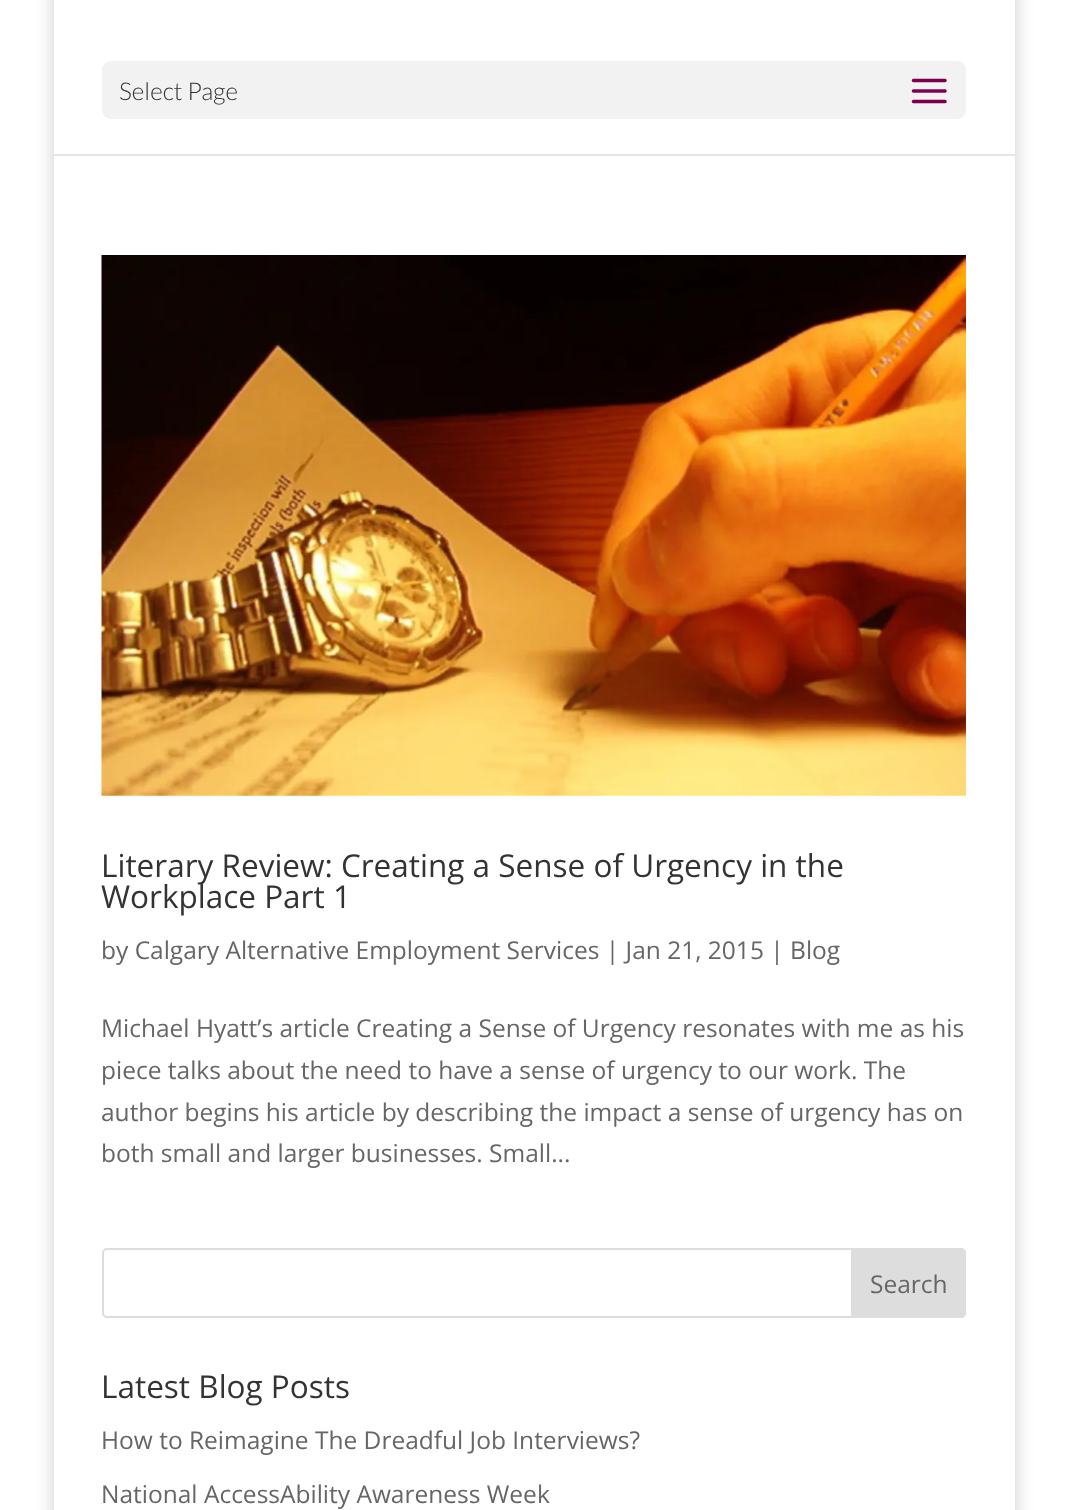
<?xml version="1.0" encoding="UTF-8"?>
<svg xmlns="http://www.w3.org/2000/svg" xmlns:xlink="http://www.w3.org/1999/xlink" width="1066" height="1510">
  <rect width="100%" height="100%" fill="#ffffff" />
  <rect x="54" y="-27" width="961" height="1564" fill="#000000" fill-opacity="0.2" filter="blur(9px)" />
  <path d="M 54 -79 v 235 h 961 v -2 h -961 z" fill="#e6e6e6" />
  <rect x="54" width="961" height="154" fill="#ffffff" />
  <rect x="102" y="61" width="864" height="58" rx="9" fill="#f2f2f2" />
  <image x="911" y="78" width="36" height="26" xlink:href="image1.png" />
  <rect x="54" y="156" width="961" height="1354" fill="#ffffff" />
  <image x="101" y="255" width="865" height="541" xlink:href="image2.png" />
  <rect x="103" y="1249" width="862" height="68" rx="4" fill="none" stroke="#dddddd" stroke-width="2" />
  <path d="M 852 1249 h 109 c 2 0 4 2 4 4 v 60 c 0 2 -2 4 -4 4 h -109 z" fill="#dddddd" stroke="#dddddd" stroke-width="2" />
  <text x="119" y="100" style="font-family: Lato; font-size: 24.5px; font-weight: 300; fill: #333333">Select Page</text>
  <text x="101" y="877" style="font-family: Open Sans; font-size: 31.5px; fill: #333333">Literary Review: Creating a Sense of Urgency in the</text>
  <text x="101" y="908" style="font-family: Open Sans; font-size: 31.5px; fill: #333333">Workplace Part 1</text>
  <text x="101" y="959" style="font-family: Open Sans; font-size: 24.5px; fill: #666666">by Calgary Alternative Employment Services | Jan 21, 2015 | Blog</text>
  <text x="101" y="1037" style="font-family: Open Sans; font-size: 24.5px; fill: #666666">Michael Hyatt’s article Creating a Sense of Urgency resonates with me as his</text>
  <text x="101" y="1079" style="font-family: Open Sans; font-size: 24.5px; fill: #666666">piece talks about the need to have a sense of urgency to our work. The</text>
  <text x="101" y="1121" style="font-family: Open Sans; font-size: 24.5px; fill: #666666">author begins his article by describing the impact a sense of urgency has on</text>
  <text x="101" y="1162" style="font-family: Open Sans; font-size: 24.5px; fill: #666666">both small and larger businesses. Small...</text>
  <text x="870" y="1293" style="font-family: Open Sans; font-size: 24.5px; fill: #666666">Search</text>
  <text x="101" y="1398" style="font-family: Open Sans; font-size: 31.5px; fill: #333333">Latest Blog Posts</text>
  <text x="101" y="1449" style="font-family: Open Sans; font-size: 24.5px; fill: #666666">How to Reimagine The Dreadful Job Interviews?</text>
  <text x="101" y="1503" style="font-family: Open Sans; font-size: 24.5px; fill: #666666">National AccessAbility Awareness Week</text>
</svg>
